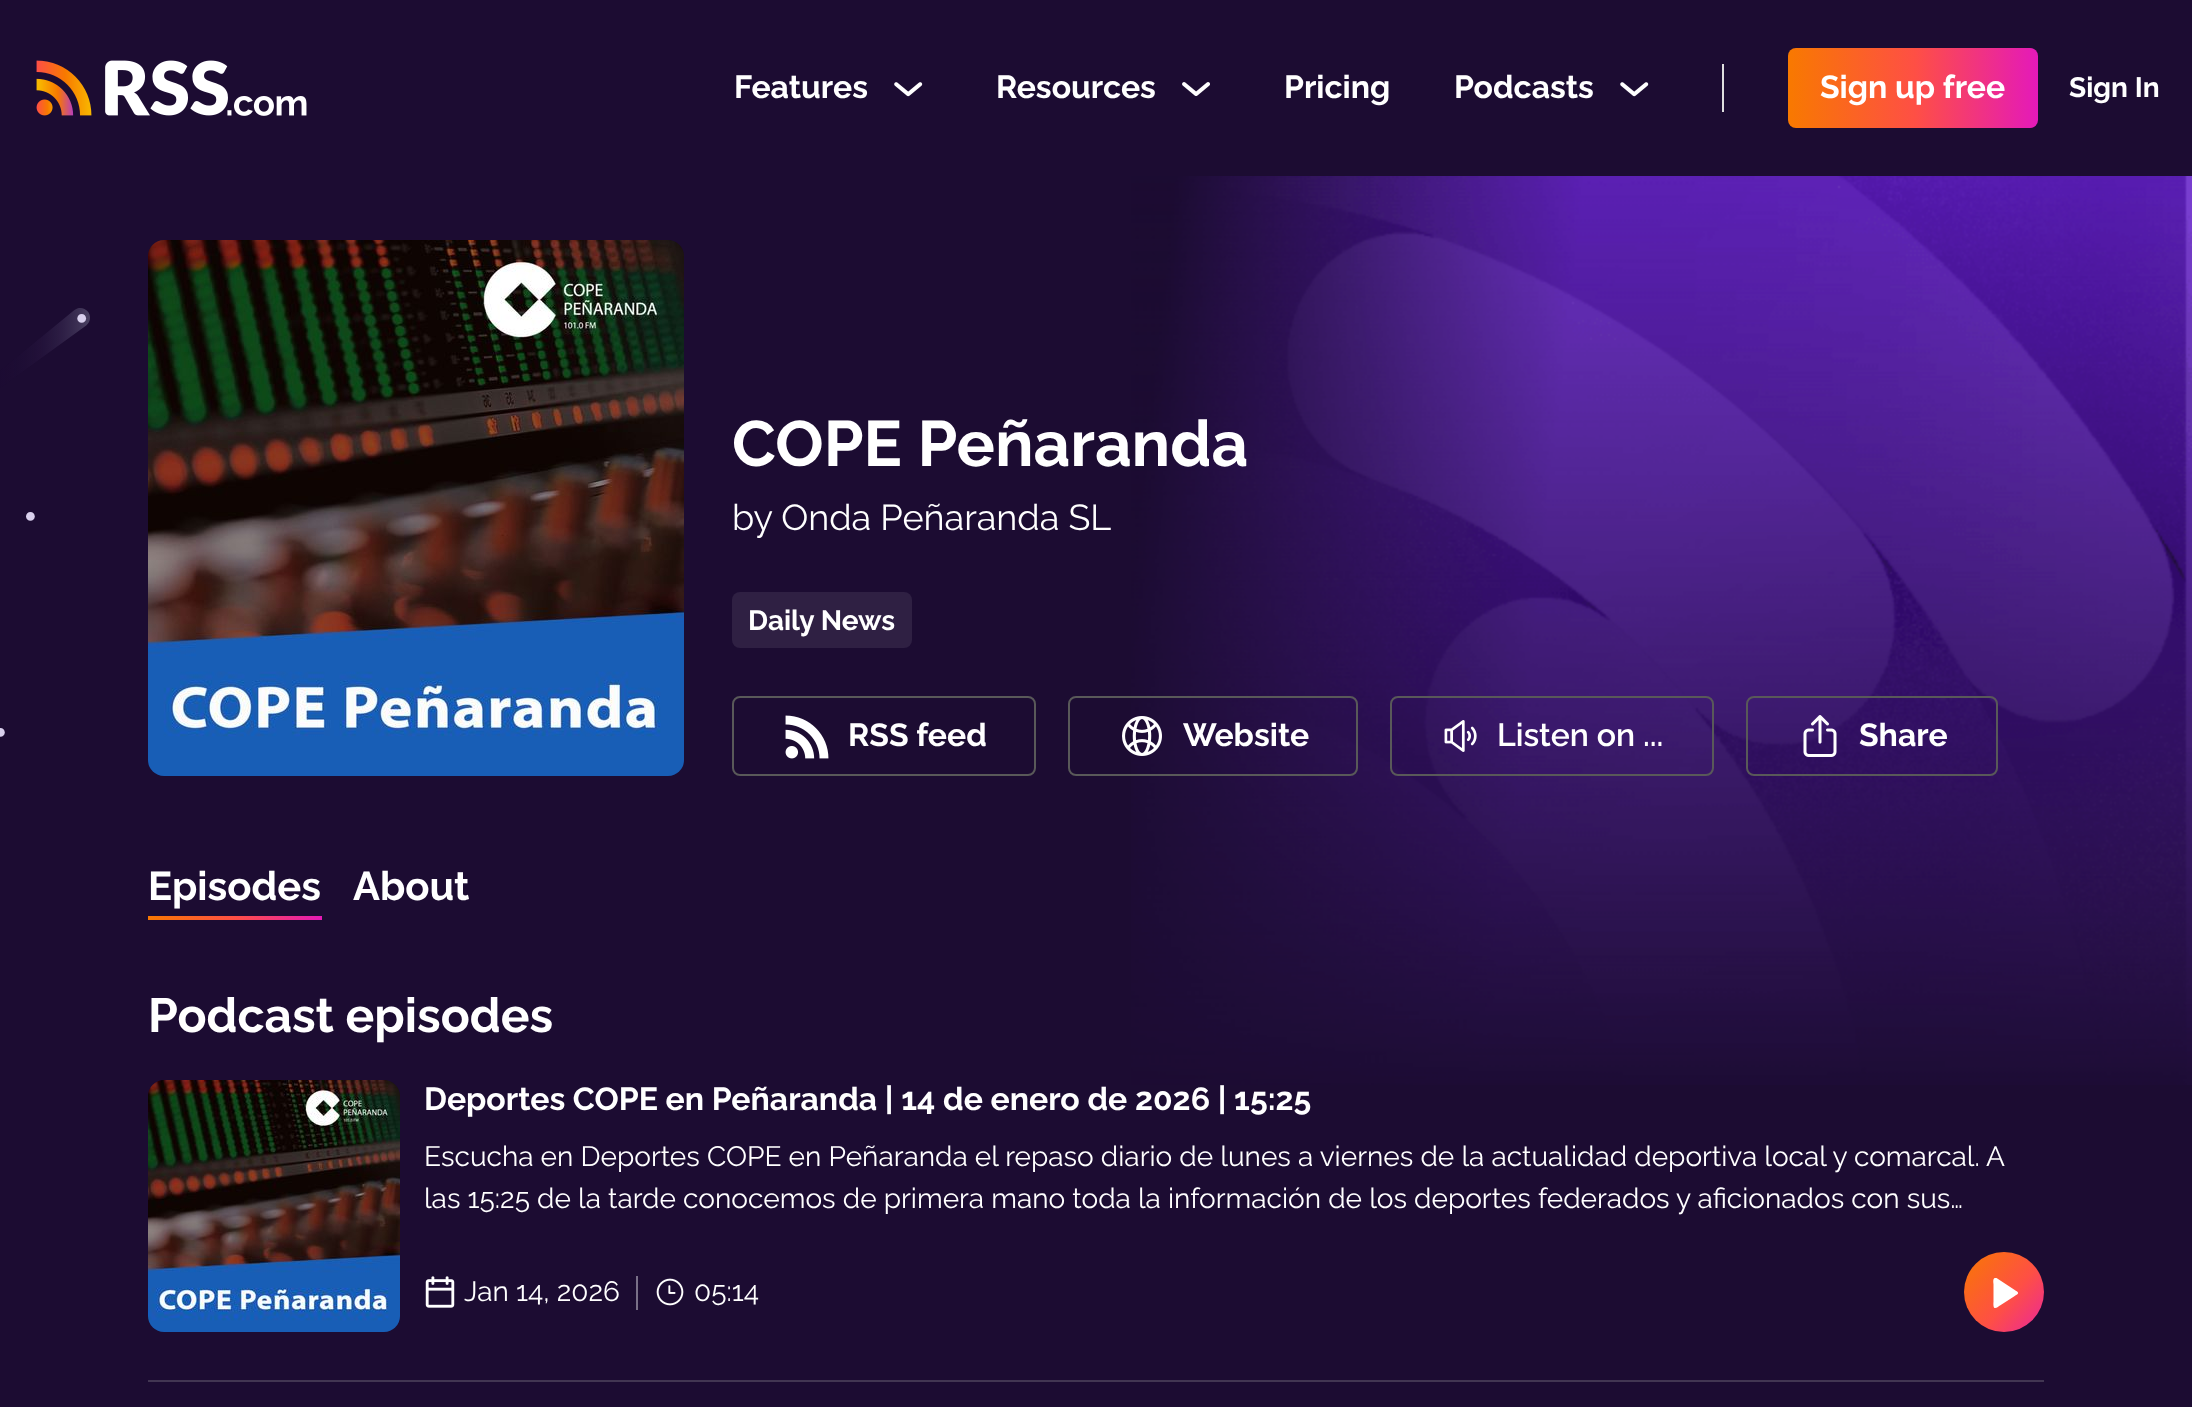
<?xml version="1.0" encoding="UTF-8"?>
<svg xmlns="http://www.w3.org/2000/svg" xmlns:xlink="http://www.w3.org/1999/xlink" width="2192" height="1407">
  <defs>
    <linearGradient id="g1" gradientUnits="userSpaceOnUse" x1="1788" y1="88" x2="2038" y2="88"><stop offset="0" stop-color="#f87900" /><stop offset="0.51" stop-color="#fe4f45" /><stop offset="1" stop-color="#e419ba" /></linearGradient>
    <linearGradient id="g2" gradientUnits="userSpaceOnUse" x1="1908" y1="1315" x2="2006" y2="1400"><stop offset="0" stop-color="#f87900" /><stop offset="0.51" stop-color="#fe4f45" /><stop offset="1" stop-color="#e419ba" /></linearGradient>
  </defs>
  <rect width="100%" height="100%" fill="#1c0c32" />
  <image x="36" y="60" width="271" height="56" xlink:href="image1.png" />
  <image x="894" y="82" width="29" height="15" xlink:href="image2.png" />
  <image x="1182" y="82" width="28" height="14" xlink:href="image3.png" />
  <rect x="1722" y="64" width="2" height="48" fill="#dfdfdf" />
  <image x="1620" y="82" width="29" height="15" xlink:href="image4.png" />
  <rect x="1788" y="48" width="250" height="80" rx="8" fill="url(#g1)" />
  <image x="1131" y="176" width="1061" height="909" xlink:href="image5.png" />
  <image x="0" y="308" width="90" height="429" xlink:href="image6.png" />
  <image x="148" y="240" width="536" height="536" xlink:href="image7.png" />
  <rect x="732" y="592" width="180" height="56" rx="8" fill="#2f2043" />
  <rect x="733" y="697" width="302" height="78" rx="7" fill="none" stroke="#595959" stroke-width="2" />
  <image x="785" y="715" width="44" height="44" xlink:href="image8.png" />
  <rect x="1069" y="697" width="288" height="78" rx="7" fill="none" stroke="#595959" stroke-width="2" />
  <image x="1122" y="716" width="40" height="40" xlink:href="image9.png" />
  <rect x="1391" y="697" width="322" height="78" rx="7" fill="none" stroke="#595959" stroke-width="2" />
  <image x="1444" y="720" width="33" height="32" xlink:href="image10.png" />
  <rect x="1747" y="697" width="250" height="78" rx="7" fill="none" stroke="#595959" stroke-width="2" />
  <image x="1803" y="715" width="34" height="42" xlink:href="image11.png" />
  <image x="148" y="916" width="174" height="4" xlink:href="image12.png" />
  <rect x="148" y="1380" width="1896" height="2" fill="#423652" />
  <image x="148" y="1080" width="252" height="252" xlink:href="image13.png" />
  <image x="425" y="1276" width="30" height="32" xlink:href="image14.png" />
  <rect x="636" y="1276" width="2" height="34" fill="#797088" />
  <image x="656" y="1278" width="28" height="28" xlink:href="image15.png" />
  <circle cx="2004" cy="1292" r="40" fill="url(#g2)" />
  <path d="M 1996.5 1278 h -1.5 c -2.5 0.5 -1.5 5 -1.5 6 v 18 c 0 0.5 -0.5 5 1 6 c 2 0.5 4.5 -2 5.5 -2.5 l 14 -9 c 5.5 -3.5 5.5 -3.5 0 -7 z" fill="#ffffff" />
  <text x="734" y="98" style="font-family: 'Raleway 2'; font-size: 32px; font-weight: 100; fill: #ffffff">Features</text>
  <text x="996" y="98" style="font-family: 'Raleway 2'; font-size: 32px; font-weight: 100; fill: #ffffff">Resources</text>
  <text x="1284" y="98" style="font-family: 'Raleway 2'; font-size: 32px; font-weight: 100; fill: #ffffff">Pricing</text>
  <text x="1454" y="98" style="font-family: 'Raleway 2'; font-size: 32px; font-weight: 100; fill: #ffffff">Podcasts</text>
  <text x="1820" y="98" style="font-family: 'Raleway 2'; font-size: 32px; font-weight: 100; fill: #ffffff">Sign up free</text>
  <text x="2069" y="97" style="font-family: 'Raleway 2'; font-size: 28px; font-weight: 100; fill: #ffffff">Sign In</text>
  <text x="732" y="466" style="font-family: 'Raleway 2'; font-size: 64px; font-weight: 100; fill: #ffffff">COPE Peñaranda</text>
  <text x="732" y="530" style="font-family: Raleway; font-size: 36px; font-weight: 100; fill: #ffffff">by Onda Peñaranda SL</text>
  <text x="748" y="630" style="font-family: 'Raleway 2'; font-size: 28px; font-weight: 100; fill: #ffffff">Daily News</text>
  <text x="848" y="746" style="font-family: 'Raleway 2'; font-size: 32px; font-weight: 100; fill: #ffffff">RSS feed</text>
  <text x="1183" y="746" style="font-family: 'Raleway 2'; font-size: 32px; font-weight: 100; fill: #ffffff">Website</text>
  <text x="1497" y="746" style="font-family: 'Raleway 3'; font-size: 32px; font-weight: 100; fill: #ffffff">Listen on ...</text>
  <text x="1859" y="746" style="font-family: 'Raleway 2'; font-size: 32px; font-weight: 100; fill: #ffffff">Share</text>
  <text x="148" y="900" style="font-family: 'Raleway 2'; font-size: 40px; font-weight: 100; fill: #ffffff">Episodes</text>
  <text x="353" y="900" style="font-family: 'Raleway 2'; font-size: 40px; font-weight: 100; fill: #ffffff">About</text>
  <text x="148" y="1032" style="font-family: 'Raleway 2'; font-size: 48px; font-weight: 100; fill: #ffffff">Podcast episodes</text>
  <text x="424" y="1110" style="font-family: 'Raleway 2'; font-size: 32px; font-weight: 100; fill: #ffffff">Deportes COPE en Peñaranda | 14 de enero de 2026 | 15:25</text>
  <text x="424" y="1166" style="font-family: Raleway; font-size: 28px; font-weight: 100; fill: #ffffff">Escucha en Deportes COPE en Peñaranda el repaso diario de lunes a viernes de la actualidad deportiva local y comarcal. A</text>
  <text x="424" y="1208" style="font-family: Raleway; font-size: 28px; font-weight: 100; fill: #ffffff">las 15:25 de la tarde conocemos de primera mano toda la información de los deportes federados y aficionados con sus…</text>
  <text x="464" y="1301" style="font-family: Raleway; font-size: 28px; font-weight: 100; fill: #ffffff">Jan 14, 2026</text>
  <text x="694" y="1301" style="font-family: Raleway; font-size: 28px; font-weight: 100; fill: #ffffff">05:14</text>
</svg>
